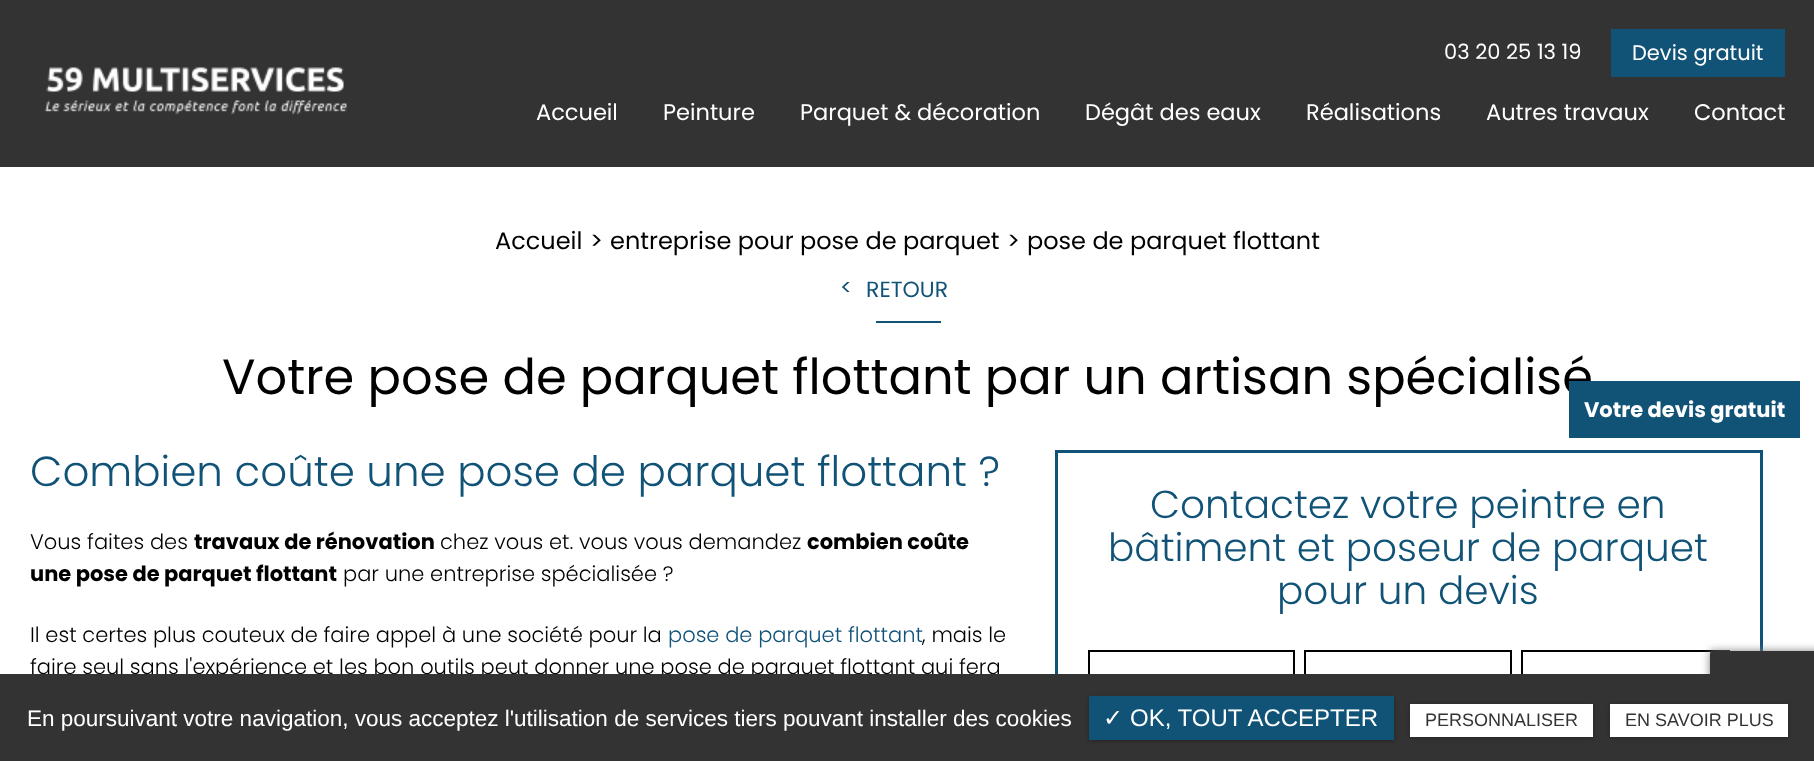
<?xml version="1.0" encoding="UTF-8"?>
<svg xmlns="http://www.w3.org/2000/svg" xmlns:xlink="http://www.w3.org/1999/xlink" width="1814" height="761">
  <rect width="100%" height="100%" fill="#ffffff" />
  <rect width="1814" height="167" fill="#333333" />
  <image x="44" y="67" width="303" height="48" xlink:href="image1.png" />
  <rect x="1611" y="29" width="174" height="48" fill="#115377" />
  <rect x="876" y="321" width="65" height="2" fill="#115377" />
  <rect x="1056.5" y="451.5" width="705" height="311" fill="none" stroke="#115377" stroke-width="3" />
  <rect x="1089" y="651" width="205" height="58" fill="none" stroke="#000000" stroke-width="2" />
  <rect x="1305" y="651" width="206" height="58" fill="none" stroke="#000000" stroke-width="2" />
  <rect x="1522" y="651" width="207" height="58" fill="none" stroke="#000000" stroke-width="2" />
  <rect x="1710" y="651" width="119" height="90" rx="3" fill="#808080" filter="blur(4px)" />
  <rect x="1710" y="651" width="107" height="90" rx="3" fill="#333333" />
  <text x="1444" y="59" style="font-family: Poppins; font-size: 21px; fill: #ffffff">03 20 25 13 19</text>
  <text x="1632" y="60" style="font-family: Poppins; font-size: 21px; fill: #ffffff">Devis gratuit</text>
  <text x="536" y="120" style="font-family: Poppins; font-size: 22.5px; fill: #ffffff">Accueil</text>
  <text x="663" y="120" style="font-family: Poppins; font-size: 22.5px; fill: #ffffff">Peinture</text>
  <text x="800" y="120" style="font-family: Poppins; font-size: 22.5px; fill: #ffffff">Parquet &amp; décoration</text>
  <text x="1085" y="120" style="font-family: Poppins; font-size: 22.5px; fill: #ffffff">Dégât des eaux</text>
  <text x="1306" y="120" style="font-family: Poppins; font-size: 22.5px; fill: #ffffff">Réalisations</text>
  <text x="1486" y="120" style="font-family: Poppins; font-size: 22.5px; fill: #ffffff">Autres travaux</text>
  <text x="1694" y="120" style="font-family: Poppins; font-size: 22.5px; fill: #ffffff">Contact</text>
  <text x="495" y="249" style="font-family: Poppins; font-size: 24px; fill: #000000">Accueil</text>
  <text x="590" y="249" style="font-family: Poppins; font-size: 24px; fill: #000000">&gt;</text>
  <text x="610" y="249" style="font-family: Poppins; font-size: 24px; fill: #000000">entreprise pour pose de parquet</text>
  <text x="1007" y="249" style="font-family: Poppins; font-size: 24px; fill: #000000">&gt;</text>
  <text x="1027" y="249" style="font-family: Poppins; font-size: 24px; fill: #000000">pose de parquet flottant</text>
  <text x="840" y="295" style="font-family: Poppins; font-size: 22px; fill: #115377">&lt;</text>
  <text x="866" y="297" style="font-family: Poppins; font-size: 22px; fill: #115377">RETOUR</text>
  <text x="222" y="394" style="font-family: Poppins; font-size: 49.5px; fill: #000000">Votre pose de parquet flottant par un artisan spécialisé</text>
  <text x="30" y="486" style="font-family: Poppins; font-size: 42px; font-weight: 300; fill: #115377">Combien coûte une pose de parquet flottant ?</text>
  <text x="30" y="549" style="font-family: Poppins; font-size: 21px; font-weight: 300; fill: #000000">Vous faites des</text>
  <text x="194" y="549" style="font-family: Poppins; font-size: 21px; font-weight: bold; fill: #000000">travaux de rénovation</text>
  <text x="440" y="549" style="font-family: Poppins; font-size: 21px; font-weight: 300; fill: #000000">chez vous et. vous vous demandez</text>
  <text x="807" y="549" style="font-family: Poppins; font-size: 21px; font-weight: bold; fill: #000000">combien coûte</text>
  <text x="30" y="581" style="font-family: Poppins; font-size: 21px; font-weight: bold; fill: #000000">une pose de parquet flottant</text>
  <text x="343" y="581" style="font-family: Poppins; font-size: 21px; font-weight: 300; fill: #000000">par une entreprise spécialisée ?</text>
  <text x="30" y="642" style="font-family: Poppins; font-size: 21px; font-weight: 300; fill: #000000">Il est certes plus couteux de faire appel à une société pour la</text>
  <text x="668" y="642" style="font-family: Poppins; font-size: 21px; font-weight: 300; fill: #115377">pose de parquet flottant</text>
  <text x="922" y="642" style="font-family: Poppins; font-size: 21px; font-weight: 300; fill: #000000">, mais le</text>
  <text x="30" y="674" style="font-family: Poppins; font-size: 21px; font-weight: 300; fill: #000000">faire seul sans l'expérience et les bon outils peut donner une pose de parquet flottant qui fera</text>
  <text x="1150" y="518" style="font-family: Poppins; font-size: 39px; font-weight: 300; fill: #115377">Contactez votre peintre en</text>
  <text x="1108" y="561" style="font-family: Poppins; font-size: 39px; font-weight: 300; fill: #115377">bâtiment et poseur de parquet</text>
  <text x="1277" y="604" style="font-family: Poppins; font-size: 39px; font-weight: 300; fill: #115377">pour un devis</text>
  <rect x="1569" y="381" width="231" height="57" fill="#115377" />
  <text x="1584" y="417" style="font-family: Poppins; font-size: 21px; font-weight: bold; fill: #ffffff">Votre devis gratuit</text>
  <rect y="674" width="1814" height="87" fill="#333333" />
  <text x="27" y="726" style="font-family: Liberation Sans; font-size: 22.5px; fill: #ffffff">En poursuivant votre navigation, vous acceptez l'utilisation de services tiers pouvant installer des cookies</text>
  <rect x="1089" y="698" width="305" height="43" fill="#000000" fill-opacity="0.3" filter="blur(2px)" />
  <rect x="1089" y="696" width="305" height="44" fill="#115377" />
  <text x="1103" y="726" style="font-family: DejaVu Sans; font-size: 24px; fill: #ffffff">✓</text>
  <text x="1130" y="726" style="font-family: Liberation Sans; font-size: 24px; fill: #ffffff">OK, TOUT ACCEPTER</text>
  <rect x="1410" y="705" width="183" height="33" fill="#000000" fill-opacity="0.3" filter="blur(2px)" />
  <rect x="1410" y="704" width="183" height="33" fill="#ffffff" />
  <text x="1425" y="726" style="font-family: Liberation Sans; font-size: 18px; fill: #333333">PERSONNALISER</text>
  <rect x="1610" y="705" width="178" height="33" fill="#000000" fill-opacity="0.3" filter="blur(2px)" />
  <rect x="1610" y="704" width="178" height="33" fill="#ffffff" />
  <text x="1625" y="726" style="font-family: Liberation Sans; font-size: 18px; fill: #333333">EN SAVOIR PLUS</text>
</svg>
